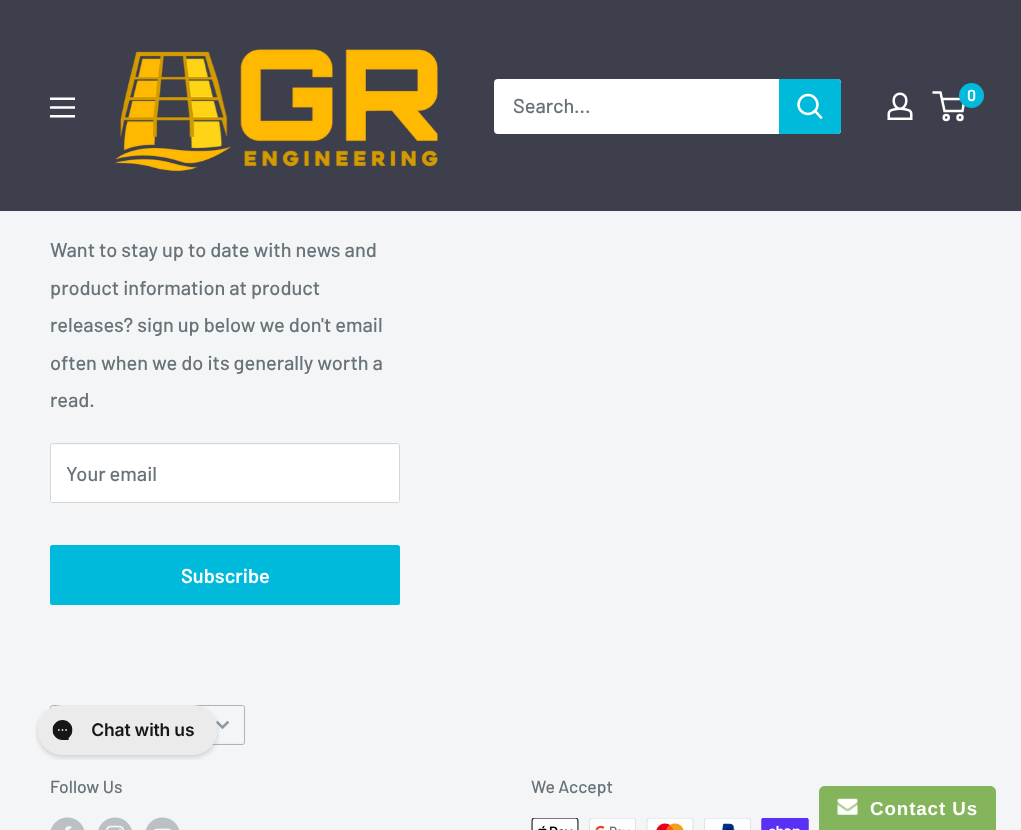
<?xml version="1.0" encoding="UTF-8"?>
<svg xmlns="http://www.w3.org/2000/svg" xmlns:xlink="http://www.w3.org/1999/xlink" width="1021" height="830">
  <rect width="100%" height="100%" fill="#f3f5f6" />
  <rect width="1021" height="211" fill="#3e3f4c" />
  <image x="115" y="49" width="323" height="123" xlink:href="image1.png" />
  <image x="887" y="92" width="26" height="28" xlink:href="image2.png" />
  <circle cx="946.2" cy="117.5" r="2.5" fill="none" stroke="#ffffff" stroke-width="2.5" />
  <circle cx="960" cy="117.5" r="2.5" fill="none" stroke="#ffffff" stroke-width="2.5" />
  <path d="M 941.5 99 h 23 l -2 12 h -18 l -4 -18.5 h -8" fill="none" stroke="#ffffff" stroke-width="2.5" />
  <circle cx="971.5" cy="95.5" r="12.5" fill="#00badb" />
  <image x="50" y="97" width="25" height="21" xlink:href="image3.png" />
  <rect x="494" y="79" width="347" height="55" rx="4" fill="#ffffff" />
  <path d="M 779 79 h 58 c 2 0 4 2 4 4 v 47 c 0 2 -2 4 -4 4 h -58 z" fill="#00badb" />
  <path d="M 821 117.5 l -6 -6.5" fill="none" stroke="#ffffff" stroke-width="2.5" stroke-linecap="square" />
  <circle cx="808" cy="104.5" r="9.5" fill="none" stroke="#ffffff" stroke-width="2.5" />
  <rect x="50" y="443" width="350" height="60" rx="2.5" fill="#ffffff" />
  <path d="M 52 445 h 346 l 1 1 v -1 l -1 -1 h -347 v 2 z" fill="#f8f8f8" />
  <rect x="50.5" y="443.5" width="349" height="59" rx="2" fill="none" stroke="#d4d6d8" />
  <rect x="50" y="545" width="350" height="60" rx="2.5" fill="#00badb" />
  <path d="M 51 741 c 0 1 0 3 1 3 h 191 c 1 0 1 -2 1 -3 c 0 1 -1 1 -2 1 h -190 z" fill="#eef0f1" />
  <rect x="50.5" y="705.5" width="194" height="39" rx="2" fill="none" stroke="#adb4b8" />
  <path d="M 227.5 722.5 l -5 5 l -5 -5" fill="none" stroke="#91999f" stroke-width="2.5" stroke-linecap="square" />
  <image x="50" y="817" width="35" height="13" xlink:href="image4.png" />
  <image x="98" y="817" width="34" height="13" xlink:href="image5.png" />
  <image x="145" y="817" width="35" height="13" xlink:href="image6.png" />
  <image x="531" y="818" width="48" height="12" xlink:href="image7.png" />
  <image x="589" y="818" width="47" height="12" xlink:href="image8.png" />
  <image x="646" y="818" width="48" height="12" xlink:href="image9.png" />
  <image x="704" y="818" width="47" height="12" xlink:href="image10.png" />
  <image x="761" y="818" width="48" height="12" xlink:href="image11.png" />
  <image x="35" y="705" width="185" height="55" xlink:href="image12.png" />
  <path d="M 825 786 h 165 c 3.5 0 6 2.5 6 6 v 38 h -177 v -38 c 0 -3.5 2.5 -6 6 -6 z" fill="#84b45b" />
  <image x="837" y="798" width="21" height="17" xlink:href="image13.png" />
  <text x="967" y="101" style="font-family: Barlow; font-size: 16px; font-weight: 600; fill: #ffffff">0</text>
  <text x="513" y="113" style="font-family: Barlow; font-size: 20px; font-weight: 500; fill: #677279">Search...</text>
  <text x="50" y="257" style="font-family: Barlow; font-size: 20px; font-weight: 500; fill: #677279">Want to stay up to date with news and</text>
  <text x="50" y="295" style="font-family: Barlow; font-size: 20px; font-weight: 500; fill: #677279">product information at product</text>
  <text x="50" y="332" style="font-family: Barlow; font-size: 20px; font-weight: 500; fill: #677279">releases? sign up below we don't email</text>
  <text x="50" y="370" style="font-family: Barlow; font-size: 20px; font-weight: 500; fill: #677279">often when we do its generally worth a</text>
  <text x="50" y="407" style="font-family: Barlow; font-size: 20px; font-weight: 500; fill: #677279">read.</text>
  <text x="66" y="481" style="font-family: Barlow; font-size: 20px; font-weight: 500; fill: #677279">Your email</text>
  <text x="181" y="583" style="font-family: Barlow; font-size: 20px; font-weight: 600; fill: #ffffff">Subscribe</text>
  <text x="50" y="793" style="font-family: Barlow; font-size: 17.5px; font-weight: 500; fill: #677279">Follow Us</text>
  <text x="531" y="793" style="font-family: Barlow; font-size: 17.5px; font-weight: 500; fill: #677279">We Accept</text>
  <text x="870" y="815" style="font-family: Liberation Sans; font-size: 18.75px; font-weight: bold; letter-spacing: 0.9px; fill: #ffffff">Contact Us</text>
</svg>
